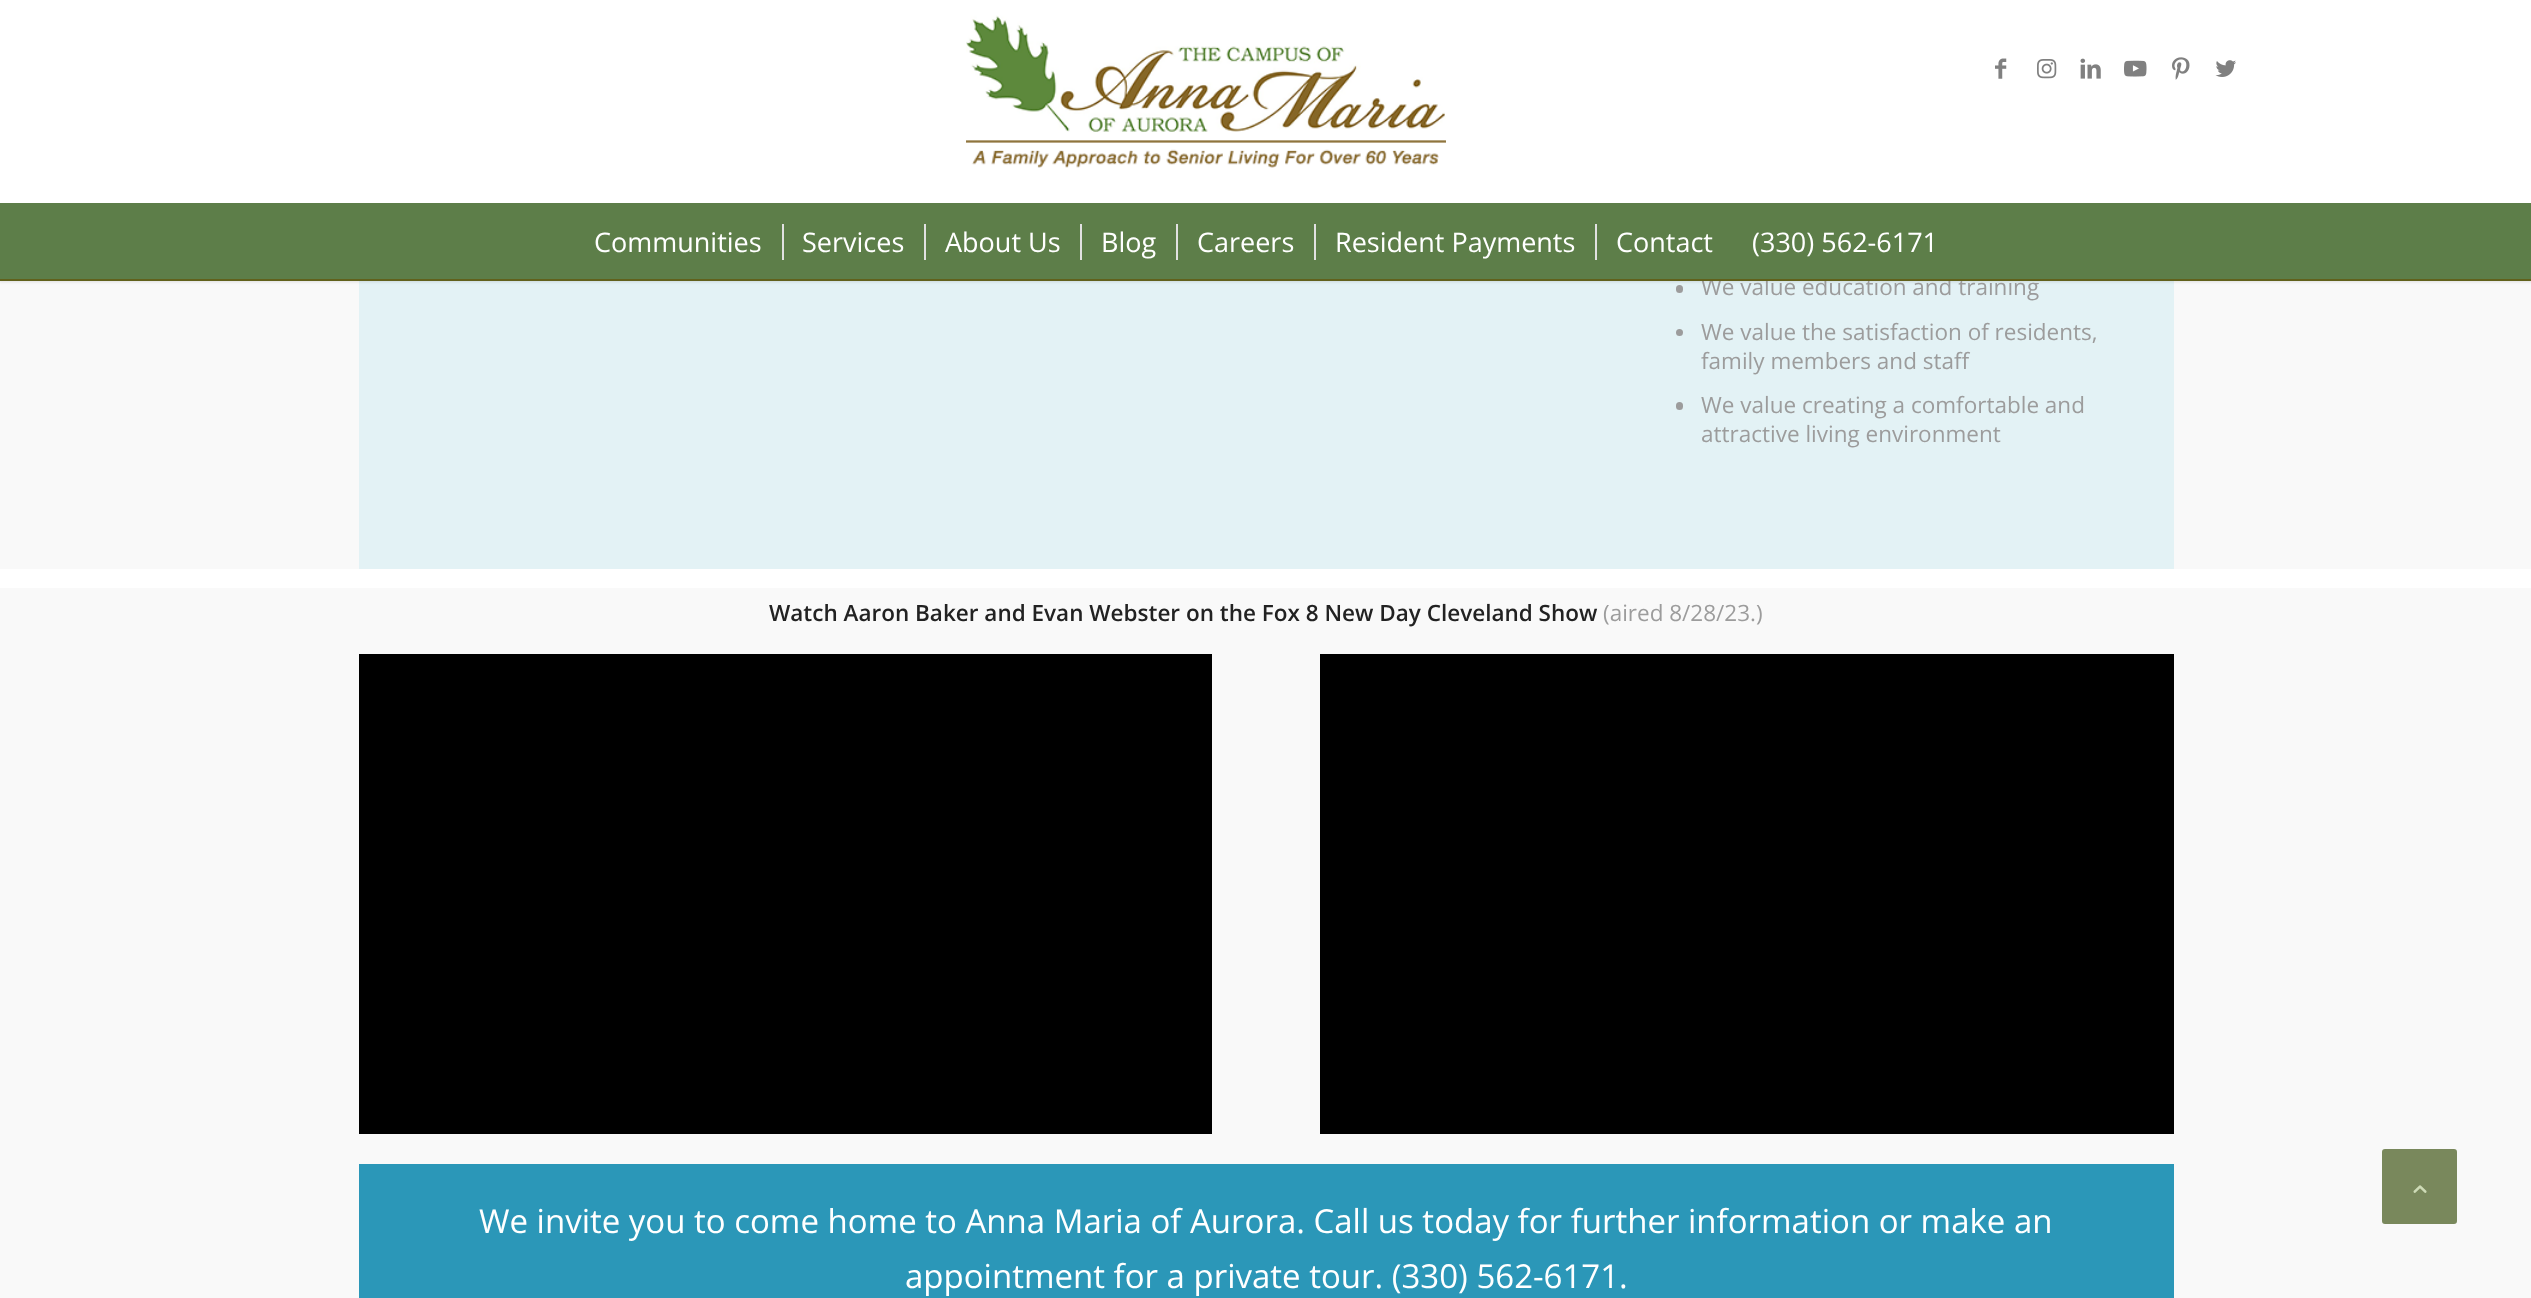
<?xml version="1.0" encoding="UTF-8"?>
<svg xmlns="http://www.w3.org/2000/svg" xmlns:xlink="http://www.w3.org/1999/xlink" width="2531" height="1298">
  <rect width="100%" height="100%" fill="#ffffff" />
  <rect y="281" width="2531" height="288" fill="#f9f9f9" />
  <rect x="359" y="281" width="1815" height="288" fill="#e3f2f5" />
  <rect x="1676" y="285" width="7" height="8" rx="3.5" fill="#9c9c9c" />
  <rect x="-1" y="-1" width="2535" height="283" fill="#000000" fill-opacity="0.1" filter="blur(1.5px)" />
  <rect width="2531" height="203" fill="#ffffff" />
  <image x="966" y="15" width="480" height="153" xlink:href="image1.png" />
  <image x="1995" y="58" width="12" height="21" xlink:href="image2.png" />
  <image x="2037" y="59" width="20" height="20" xlink:href="image3.png" />
  <image x="2080" y="58" width="21" height="21" xlink:href="image4.png" />
  <image x="2124" y="60" width="23" height="17" xlink:href="image5.png" />
  <image x="2172" y="57" width="18" height="23" xlink:href="image6.png" />
  <image x="2215" y="60" width="21" height="17" xlink:href="image7.png" />
  <circle cx="1679.5" cy="332.5" r="3.5" fill="#9c9c9c" />
  <rect x="1676" y="402" width="7" height="8" rx="3.5" fill="#9c9c9c" />
  <rect y="588" width="2531" height="710" fill="#f9f9f9" />
  <rect x="359" y="654" width="853" height="480" fill="#000000" />
  <rect x="1320" y="654" width="854" height="480" fill="#000000" />
  <rect x="359" y="1164" width="1815" height="134" fill="#2b97b8" />
  <rect x="2383" y="1150" width="73" height="73" rx="2" fill="#79885c" stroke="#79885c" stroke-width="2" />
  <image x="2413" y="1185" width="14" height="8" xlink:href="image8.png" />
  <text x="1701" y="295" style="font-family: Open Sans; font-size: 22.5px; fill: #9c9c9c">We value education and training</text>
  <rect y="203" width="2531" height="76" fill="#5d7e49" />
  <text x="1752" y="252" style="font-family: Open Sans; font-size: 27px; fill: #ffffff">(330) 562-6171</text>
  <text x="1616" y="252" style="font-family: Open Sans; font-size: 27px; fill: #ffffff">Contact</text>
  <rect x="1595" y="224" width="2" height="36" fill="#e1e1e1" />
  <text x="1335" y="252" style="font-family: Open Sans; font-size: 27px; fill: #ffffff">Resident Payments</text>
  <rect x="1314" y="224" width="2" height="36" fill="#e1e1e1" />
  <text x="1197" y="252" style="font-family: Open Sans; font-size: 27px; fill: #ffffff">Careers</text>
  <rect x="1176" y="224" width="2" height="36" fill="#e1e1e1" />
  <text x="1101" y="252" style="font-family: Open Sans; font-size: 27px; fill: #ffffff">Blog</text>
  <rect x="1080" y="224" width="2" height="36" fill="#e1e1e1" />
  <text x="945" y="252" style="font-family: Open Sans; font-size: 27px; fill: #ffffff">About Us</text>
  <rect x="924" y="224" width="2" height="36" fill="#e1e1e1" />
  <text x="802" y="252" style="font-family: Open Sans; font-size: 27px; fill: #ffffff">Services</text>
  <rect x="782" y="224" width="2" height="36" fill="#e1e1e1" />
  <text x="594" y="252" style="font-family: Open Sans; font-size: 27px; fill: #ffffff">Communities</text>
  <rect y="279" width="2531" height="2" fill="#61611c" />
  <text x="1701" y="340" style="font-family: Open Sans; font-size: 22.5px; fill: #9c9c9c">We value the satisfaction of residents,</text>
  <text x="1701" y="369" style="font-family: Open Sans; font-size: 22.5px; fill: #9c9c9c">family members and staff</text>
  <text x="1701" y="413" style="font-family: Open Sans; font-size: 22.5px; fill: #9c9c9c">We value creating a comfortable and</text>
  <text x="1701" y="442" style="font-family: Open Sans; font-size: 22.5px; fill: #9c9c9c">attractive living environment</text>
  <text x="769" y="621" style="font-family: Open Sans; font-size: 22.5px; font-weight: 600; fill: #222222">Watch Aaron Baker and Evan Webster on the Fox 8 New Day Cleveland Show</text>
  <text x="1603" y="621" style="font-family: Open Sans; font-size: 22.5px; fill: #9c9c9c">(aired 8/28/23.)</text>
  <text x="479" y="1233" style="font-family: Open Sans; font-size: 33px; fill: #ffffff">We invite you to come home to Anna Maria of Aurora. Call us today for further information or make an</text>
  <text x="905" y="1288" style="font-family: Open Sans; font-size: 33px; fill: #ffffff">appointment for a private tour. (330) 562-6171.</text>
</svg>
